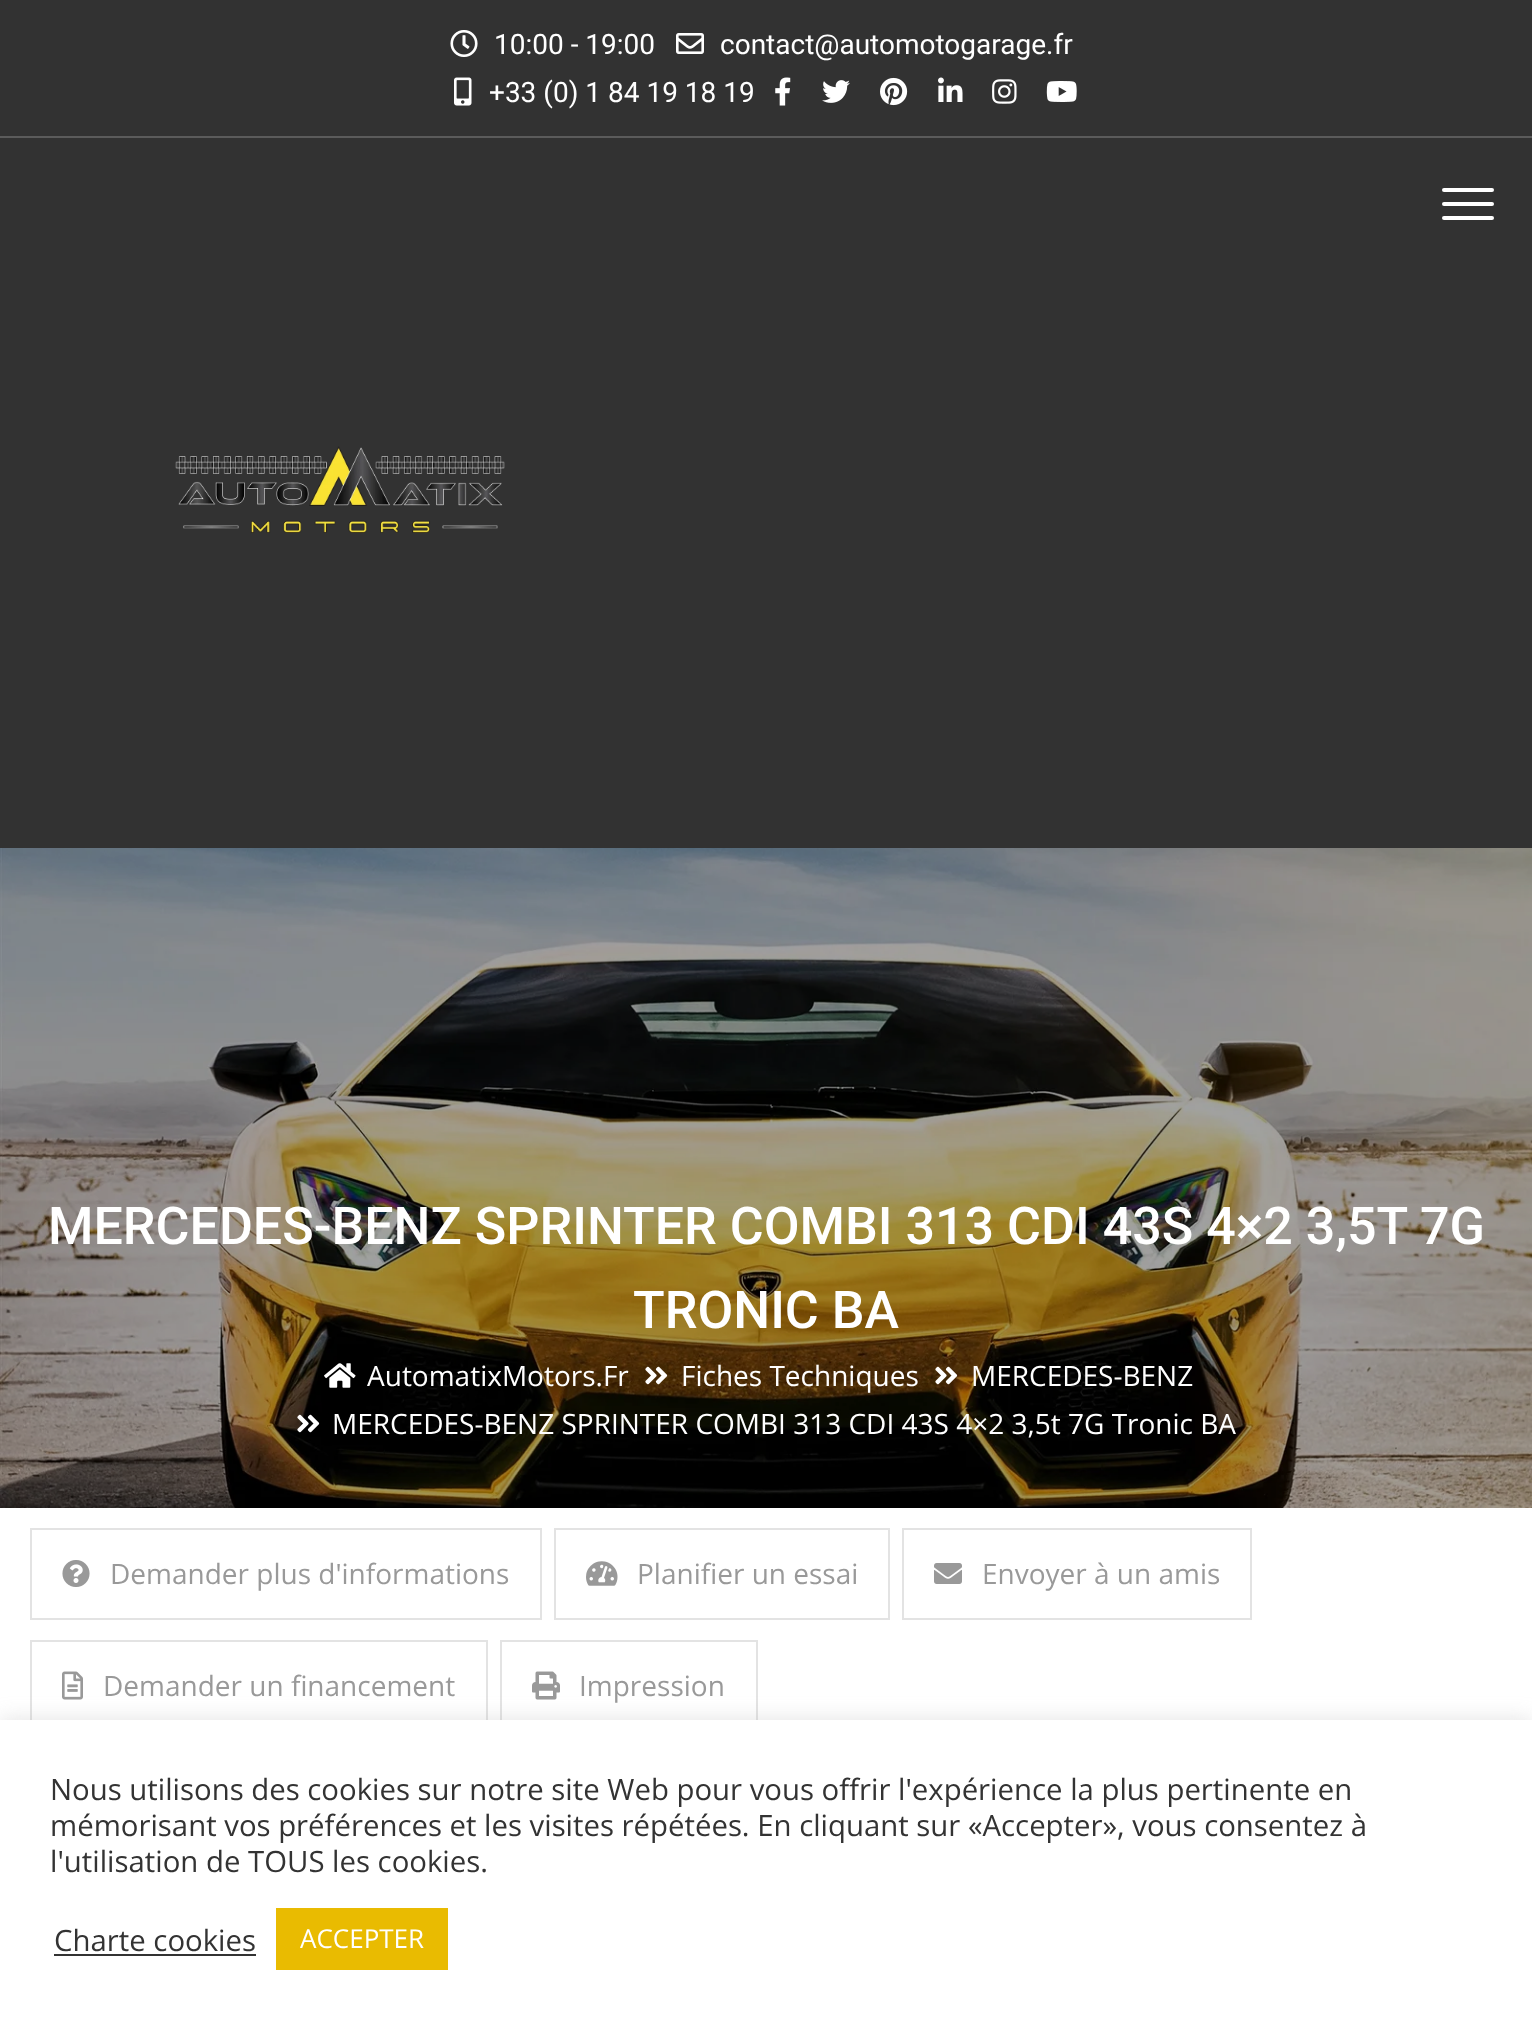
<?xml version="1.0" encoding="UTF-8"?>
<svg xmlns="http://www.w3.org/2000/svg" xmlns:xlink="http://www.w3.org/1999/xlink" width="1532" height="2030">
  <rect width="100%" height="100%" fill="#ffffff" />
  <rect width="1532" height="848" fill="#323232" />
  <rect y="136" width="1532" height="2" fill="#5b5b5b" />
  <image x="450" y="30" width="28" height="27" xlink:href="image1.png" />
  <image x="676" y="33" width="28" height="21" xlink:href="image2.png" />
  <image x="454" y="77" width="18" height="29" xlink:href="image3.png" />
  <image x="775" y="77" width="16" height="29" xlink:href="image4.png" />
  <image x="822" y="80" width="28" height="23" xlink:href="image5.png" />
  <image x="880" y="77" width="28" height="29" xlink:href="image6.png" />
  <image x="938" y="77" width="25" height="25" xlink:href="image7.png" />
  <image x="992" y="79" width="25" height="25" xlink:href="image8.png" />
  <image x="1046" y="81" width="31" height="21" xlink:href="image9.png" />
  <rect x="1442" y="188" width="52" height="4" rx="2" fill="#ffffff" />
  <rect x="1442" y="202" width="52" height="4" rx="2" fill="#ffffff" />
  <rect x="1442" y="216" width="52" height="4" rx="2" fill="#ffffff" />
  <image x="175" y="446" width="330" height="87" xlink:href="image10.png" />
  <image x="0" y="848" width="1532" height="660" xlink:href="image11.png" />
  <image x="324" y="1363" width="32" height="25" xlink:href="image12.png" />
  <image x="645" y="1366" width="23" height="19" xlink:href="image13.png" />
  <image x="935" y="1366" width="23" height="19" xlink:href="image14.png" />
  <image x="297" y="1414" width="23" height="19" xlink:href="image15.png" />
  <rect x="31" y="1529" width="510" height="90" fill="none" stroke="#e3e3e3" stroke-width="2" />
  <image x="62" y="1560" width="28" height="27" xlink:href="image16.png" />
  <rect x="555" y="1529" width="334" height="90" fill="none" stroke="#e3e3e3" stroke-width="2" />
  <image x="586" y="1561" width="32" height="25" xlink:href="image17.png" />
  <rect x="903" y="1529" width="348" height="90" fill="none" stroke="#e3e3e3" stroke-width="2" />
  <image x="934" y="1563" width="28" height="21" xlink:href="image18.png" />
  <rect x="31" y="1641" width="456" height="90" fill="none" stroke="#e3e3e3" stroke-width="2" />
  <image x="62" y="1671" width="21" height="29" xlink:href="image19.png" />
  <rect x="501" y="1641" width="256" height="90" fill="none" stroke="#e3e3e3" stroke-width="2" />
  <image x="532" y="1671" width="28" height="29" xlink:href="image20.png" />
  <rect y="1718" width="1532" height="310" fill="#acabab" fill-opacity="0.3" filter="blur(10px)" />
  <rect y="1720" width="1532" height="310" fill="#ffffff" />
  <rect x="54" y="1954" width="202" height="2" fill="#333333" />
  <rect x="276" y="1908" width="172" height="62" fill="#e9bb01" />
  <text x="494" y="54" style="font-family: Roboto; font-size: 28px; fill: #ffffff">10:00 - 19:00</text>
  <text x="720" y="54" style="font-family: Roboto; font-size: 28px; fill: #ffffff">contact@automotogarage.fr</text>
  <text x="489" y="102" style="font-family: Roboto; font-size: 28px; fill: #ffffff">+33 (0) 1 84 19 18 19</text>
  <text x="48" y="1244" style="font-family: Roboto; font-size: 52px; font-weight: 500; fill: #ffffff">MERCEDES-BENZ SPRINTER COMBI 313 CDI 43S 4×2 3,5T 7G</text>
  <text x="633" y="1328" style="font-family: Roboto; font-size: 52px; font-weight: 500; fill: #ffffff">TRONIC BA</text>
  <text x="367" y="1386" style="font-family: Open Sans; font-size: 28px; fill: #ffffff">AutomatixMotors.Fr</text>
  <text x="681" y="1386" style="font-family: Open Sans; font-size: 28px; fill: #ffffff">Fiches Techniques</text>
  <text x="971" y="1386" style="font-family: Open Sans; font-size: 28px; fill: #ffffff">MERCEDES-BENZ</text>
  <text x="332" y="1434" style="font-family: Open Sans; font-size: 28px; fill: #ffffff">MERCEDES-BENZ SPRINTER COMBI 313 CDI 43S 4×2 3,5t 7G Tronic BA</text>
  <text x="110" y="1584" style="font-family: Open Sans; font-size: 28px; fill: #999999">Demander plus d'informations</text>
  <text x="637" y="1584" style="font-family: Open Sans; font-size: 28px; fill: #999999">Planifier un essai</text>
  <text x="982" y="1584" style="font-family: Open Sans; font-size: 28px; fill: #999999">Envoyer à un amis</text>
  <text x="103" y="1696" style="font-family: Open Sans; font-size: 28px; fill: #999999">Demander un financement</text>
  <text x="579" y="1696" style="font-family: Open Sans; font-size: 28px; fill: #999999">Impression</text>
  <text x="50" y="1800" style="font-family: Open Sans; font-size: 29.35px; fill: #333333">Nous utilisons des cookies sur notre site Web pour vous offrir l'expérience la plus pertinente en</text>
  <text x="50" y="1836" style="font-family: Open Sans; font-size: 29.35px; fill: #333333">mémorisant vos préférences et les visites répétées. En cliquant sur «Accepter», vous consentez à</text>
  <text x="50" y="1872" style="font-family: Open Sans; font-size: 29.35px; fill: #333333">l'utilisation de TOUS les cookies.</text>
  <text x="54" y="1951" style="font-family: Open Sans; font-size: 29.35px; fill: #333333">Charte cookies</text>
  <text x="300" y="1948" style="font-family: Open Sans; font-size: 26px; fill: #ffffff">ACCEPTER</text>
</svg>
